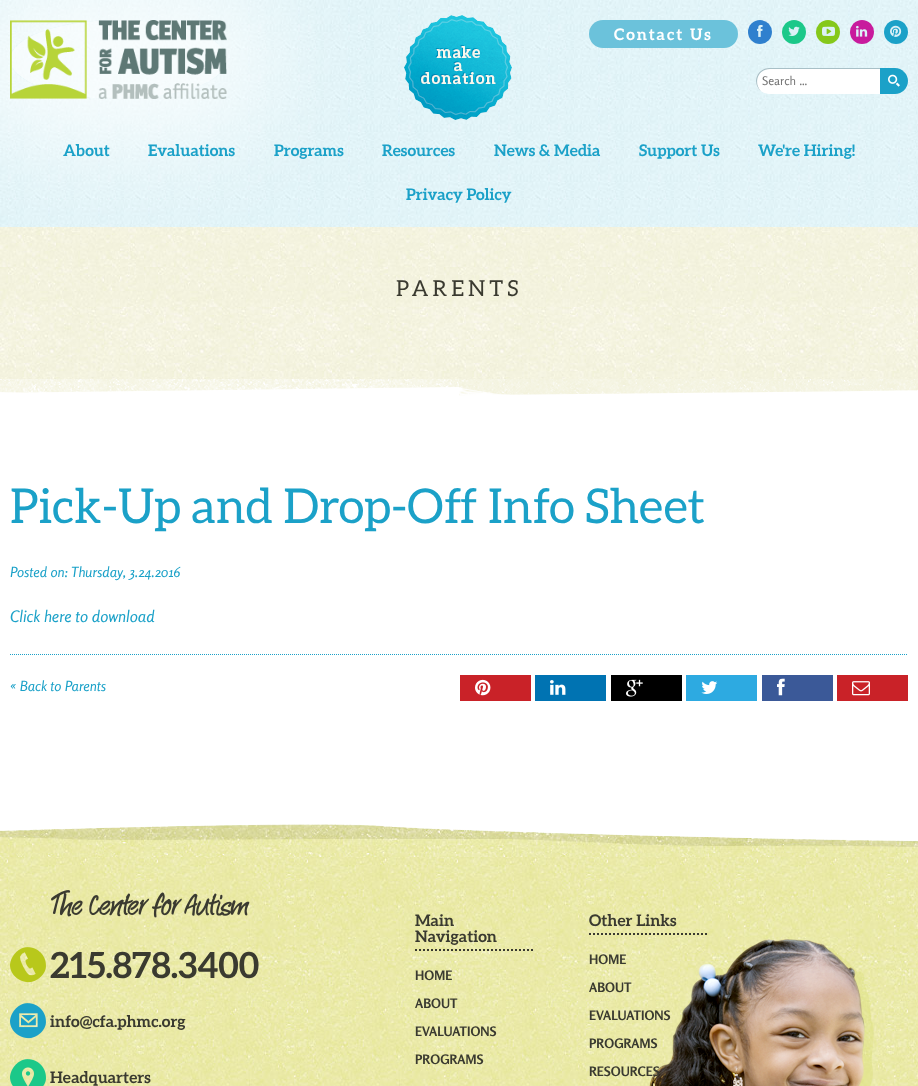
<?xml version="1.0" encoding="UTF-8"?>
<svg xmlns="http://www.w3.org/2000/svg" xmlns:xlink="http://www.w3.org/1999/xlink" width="918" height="1086">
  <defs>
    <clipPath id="clip1"><path d="M 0 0 h 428 v 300 h -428 z m 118.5 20 c 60 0 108.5 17.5 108.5 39.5 c 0 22 -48.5 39.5 -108.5 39.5 c -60 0 -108.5 -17.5 -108.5 -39.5 c 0 -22 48.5 -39.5 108.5 -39.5 z" clip-rule="evenodd" /></clipPath>
  </defs>
  <rect width="100%" height="100%" fill="#ffffff" />
  <image x="0" y="0" width="918" height="227" xlink:href="image1.png" />
  <image x="404" y="15" width="108" height="105" xlink:href="image3.png" />
  <image x="0" y="227" width="918" height="152" xlink:href="image10.png" />
  <g clip-path="url(#clip1)">
    <rect x="-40" y="-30" width="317" height="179" rx="89.5" fill="#ffffff" fill-opacity="0.7" filter="blur(50px)" />
  </g>
  <ellipse cx="118.5" cy="59.5" rx="108.5" ry="39.5" fill="#ffffff" fill-opacity="0.7" />
  <image x="10" y="20" width="217" height="79" xlink:href="image2.png" />
  <rect x="589" y="20" width="149" height="28" rx="14" fill="#6bc2db" />
  <circle cx="760" cy="32" r="12" fill="#2f80ce" />
  <image x="757" y="25" width="6" height="12" xlink:href="image4.png" />
  <circle cx="794" cy="32" r="12" fill="#1bc889" />
  <image x="788" y="26" width="12" height="10" xlink:href="image5.png" />
  <circle cx="828" cy="32" r="12" fill="#85c81b" />
  <image x="822" y="26" width="13" height="10" xlink:href="image6.png" />
  <circle cx="862" cy="32" r="12" fill="#c81b9d" />
  <image x="856" y="25" width="12" height="12" xlink:href="image7.png" />
  <circle cx="896" cy="32" r="12" fill="#1ba1c8" />
  <image x="890" y="25" width="12" height="12" xlink:href="image8.png" />
  <path d="M 769 68 h 111 v 26 h -111 c -7 0 -13 -6 -13 -13 c 0 -7 6 -13 13 -13 z" fill="#ffffff" />
  <path d="M 770 69 h 110 v -1 h -111 c -7 0 -13 6 -13 13 c 0 4 2 8 5 10 c -8 -8 -3 -22 9 -22 z" fill="#a8c0c7" />
  <path d="M 880 68 h 15 c 7 0 13 6 13 13 c 0 7 -6 13 -13 13 h -15 z" fill="#1ba1c8" />
  <image x="888" y="74" width="12" height="13" xlink:href="image9.png" />
  <image x="0" y="379" width="918" height="17" xlink:href="image11.png" />
  <path d="M 10 654.5 h 898" fill="none" stroke="#1ba1c8" stroke-dasharray="1 1" />
  <rect x="460" y="675" width="71" height="26" fill="#c92228" />
  <image x="475" y="679" width="16" height="17" xlink:href="image12.png" />
  <rect x="535" y="675" width="71" height="26" fill="#0073b2" />
  <image x="550" y="680" width="16" height="15" xlink:href="image13.png" />
  <rect x="611" y="675" width="71" height="26" fill="#000000" />
  <image x="626" y="679" width="17" height="18" xlink:href="image14.png" />
  <rect x="686" y="675" width="71" height="26" fill="#2daae1" />
  <image x="701" y="681" width="17" height="13" xlink:href="image15.png" />
  <rect x="762" y="675" width="71" height="26" fill="#3b5998" />
  <image x="777" y="678" width="8" height="18" xlink:href="image16.png" />
  <rect x="837" y="675" width="71" height="26" fill="#c92228" />
  <image x="852" y="681" width="18" height="15" xlink:href="image17.png" />
  <image x="0" y="857" width="918" height="229" xlink:href="image18.png" />
  <image x="0" y="824" width="918" height="33" xlink:href="image19.png" />
  <image x="51" y="890" width="199" height="28" xlink:href="image20.png" />
  <image x="10" y="947" width="36" height="36" xlink:href="image21.png" />
  <image x="10" y="1003" width="36" height="36" xlink:href="image22.png" />
  <image x="10" y="1059" width="36" height="27" xlink:href="image23.png" />
  <path d="M 415 950 h 119" fill="none" stroke="#3a3a30" stroke-width="2" stroke-dasharray="2 2" />
  <path d="M 589 934 h 119" fill="none" stroke="#3a3a30" stroke-width="2" stroke-dasharray="2 2" />
  <image x="649" y="939" width="225" height="147" xlink:href="image24.png" />
  <text x="614" y="40" style="font-family: aleo; font-size: 16px; font-weight: bold; letter-spacing: 2px; fill: #ffffff">Contact Us</text>
  <text x="762" y="85" style="font-family: Rosario; font-size: 12px; fill: #757575">Search …</text>
  <text x="63" y="156" style="font-family: aleo; font-size: 16px; font-weight: bold; fill: #1ba1c8">About</text>
  <text x="148" y="156" style="font-family: aleo; font-size: 16px; font-weight: bold; fill: #1ba1c8">Evaluations</text>
  <text x="274" y="156" style="font-family: aleo; font-size: 16px; font-weight: bold; fill: #1ba1c8">Programs</text>
  <text x="382" y="156" style="font-family: aleo; font-size: 16px; font-weight: bold; fill: #1ba1c8">Resources</text>
  <text x="494" y="156" style="font-family: aleo; font-size: 16px; font-weight: bold; fill: #1ba1c8">News &amp; Media</text>
  <text x="639" y="156" style="font-family: aleo; font-size: 16px; font-weight: bold; fill: #1ba1c8">Support Us</text>
  <text x="758" y="156" style="font-family: aleo; font-size: 16px; font-weight: bold; fill: #1ba1c8">We're Hiring!</text>
  <text x="406" y="200" style="font-family: aleo; font-size: 16px; font-weight: bold; fill: #1ba1c8">Privacy Policy</text>
  <text x="396" y="296" style="font-family: Aleo; font-size: 22px; letter-spacing: 4px; fill: #3a3a30">PARENTS</text>
  <text x="10" y="523" style="font-family: Aleo; font-size: 48px; fill: #1ba1c8">Pick-Up and Drop-Off Info Sheet</text>
  <text x="10" y="577" style="font-family: Rosario; font-size: 14px; font-style: italic; fill: #1ba1c8">Posted on: Thursday, 3.24.2016</text>
  <text x="10" y="622" style="font-family: Rosario; font-size: 16px; font-style: italic; fill: #1ba1c8">Click here to download</text>
  <text x="10" y="691" style="font-family: Rosario; font-size: 14px; font-style: italic; fill: #1ba1c8">« Back to Parents</text>
  <text x="50" y="978" style="font-family: aleo; font-size: 36px; font-weight: bold; fill: #3a3a30">215.878.3400</text>
  <text x="50" y="1027" style="font-family: aleo; font-size: 16px; font-weight: bold; fill: #3a3a30">info@cfa.phmc.org</text>
  <text x="50" y="1083" style="font-family: aleo; font-size: 16px; font-weight: bold; fill: #3a3a30">Headquarters</text>
  <text x="415" y="926" style="font-family: aleo; font-size: 16px; font-weight: bold; fill: #3a3a30">Main</text>
  <text x="415" y="942" style="font-family: aleo; font-size: 16px; font-weight: bold; fill: #3a3a30">Navigation</text>
  <text x="415" y="980" style="font-family: Rosario; font-size: 13px; font-weight: bold; fill: #3a3a30">HOME</text>
  <text x="415" y="1008" style="font-family: Rosario; font-size: 13px; font-weight: bold; fill: #3a3a30">ABOUT</text>
  <text x="415" y="1036" style="font-family: Rosario; font-size: 13px; font-weight: bold; fill: #3a3a30">EVALUATIONS</text>
  <text x="415" y="1064" style="font-family: Rosario; font-size: 13px; font-weight: bold; fill: #3a3a30">PROGRAMS</text>
  <text x="589" y="926" style="font-family: aleo; font-size: 16px; font-weight: bold; fill: #3a3a30">Other Links</text>
  <text x="589" y="964" style="font-family: Rosario; font-size: 13px; font-weight: bold; fill: #3a3a30">HOME</text>
  <text x="589" y="992" style="font-family: Rosario; font-size: 13px; font-weight: bold; fill: #3a3a30">ABOUT</text>
  <text x="589" y="1020" style="font-family: Rosario; font-size: 13px; font-weight: bold; fill: #3a3a30">EVALUATIONS</text>
  <text x="589" y="1048" style="font-family: Rosario; font-size: 13px; font-weight: bold; fill: #3a3a30">PROGRAMS</text>
  <text x="589" y="1076" style="font-family: Rosario; font-size: 13px; font-weight: bold; fill: #3a3a30">RESOURCES</text>
</svg>
